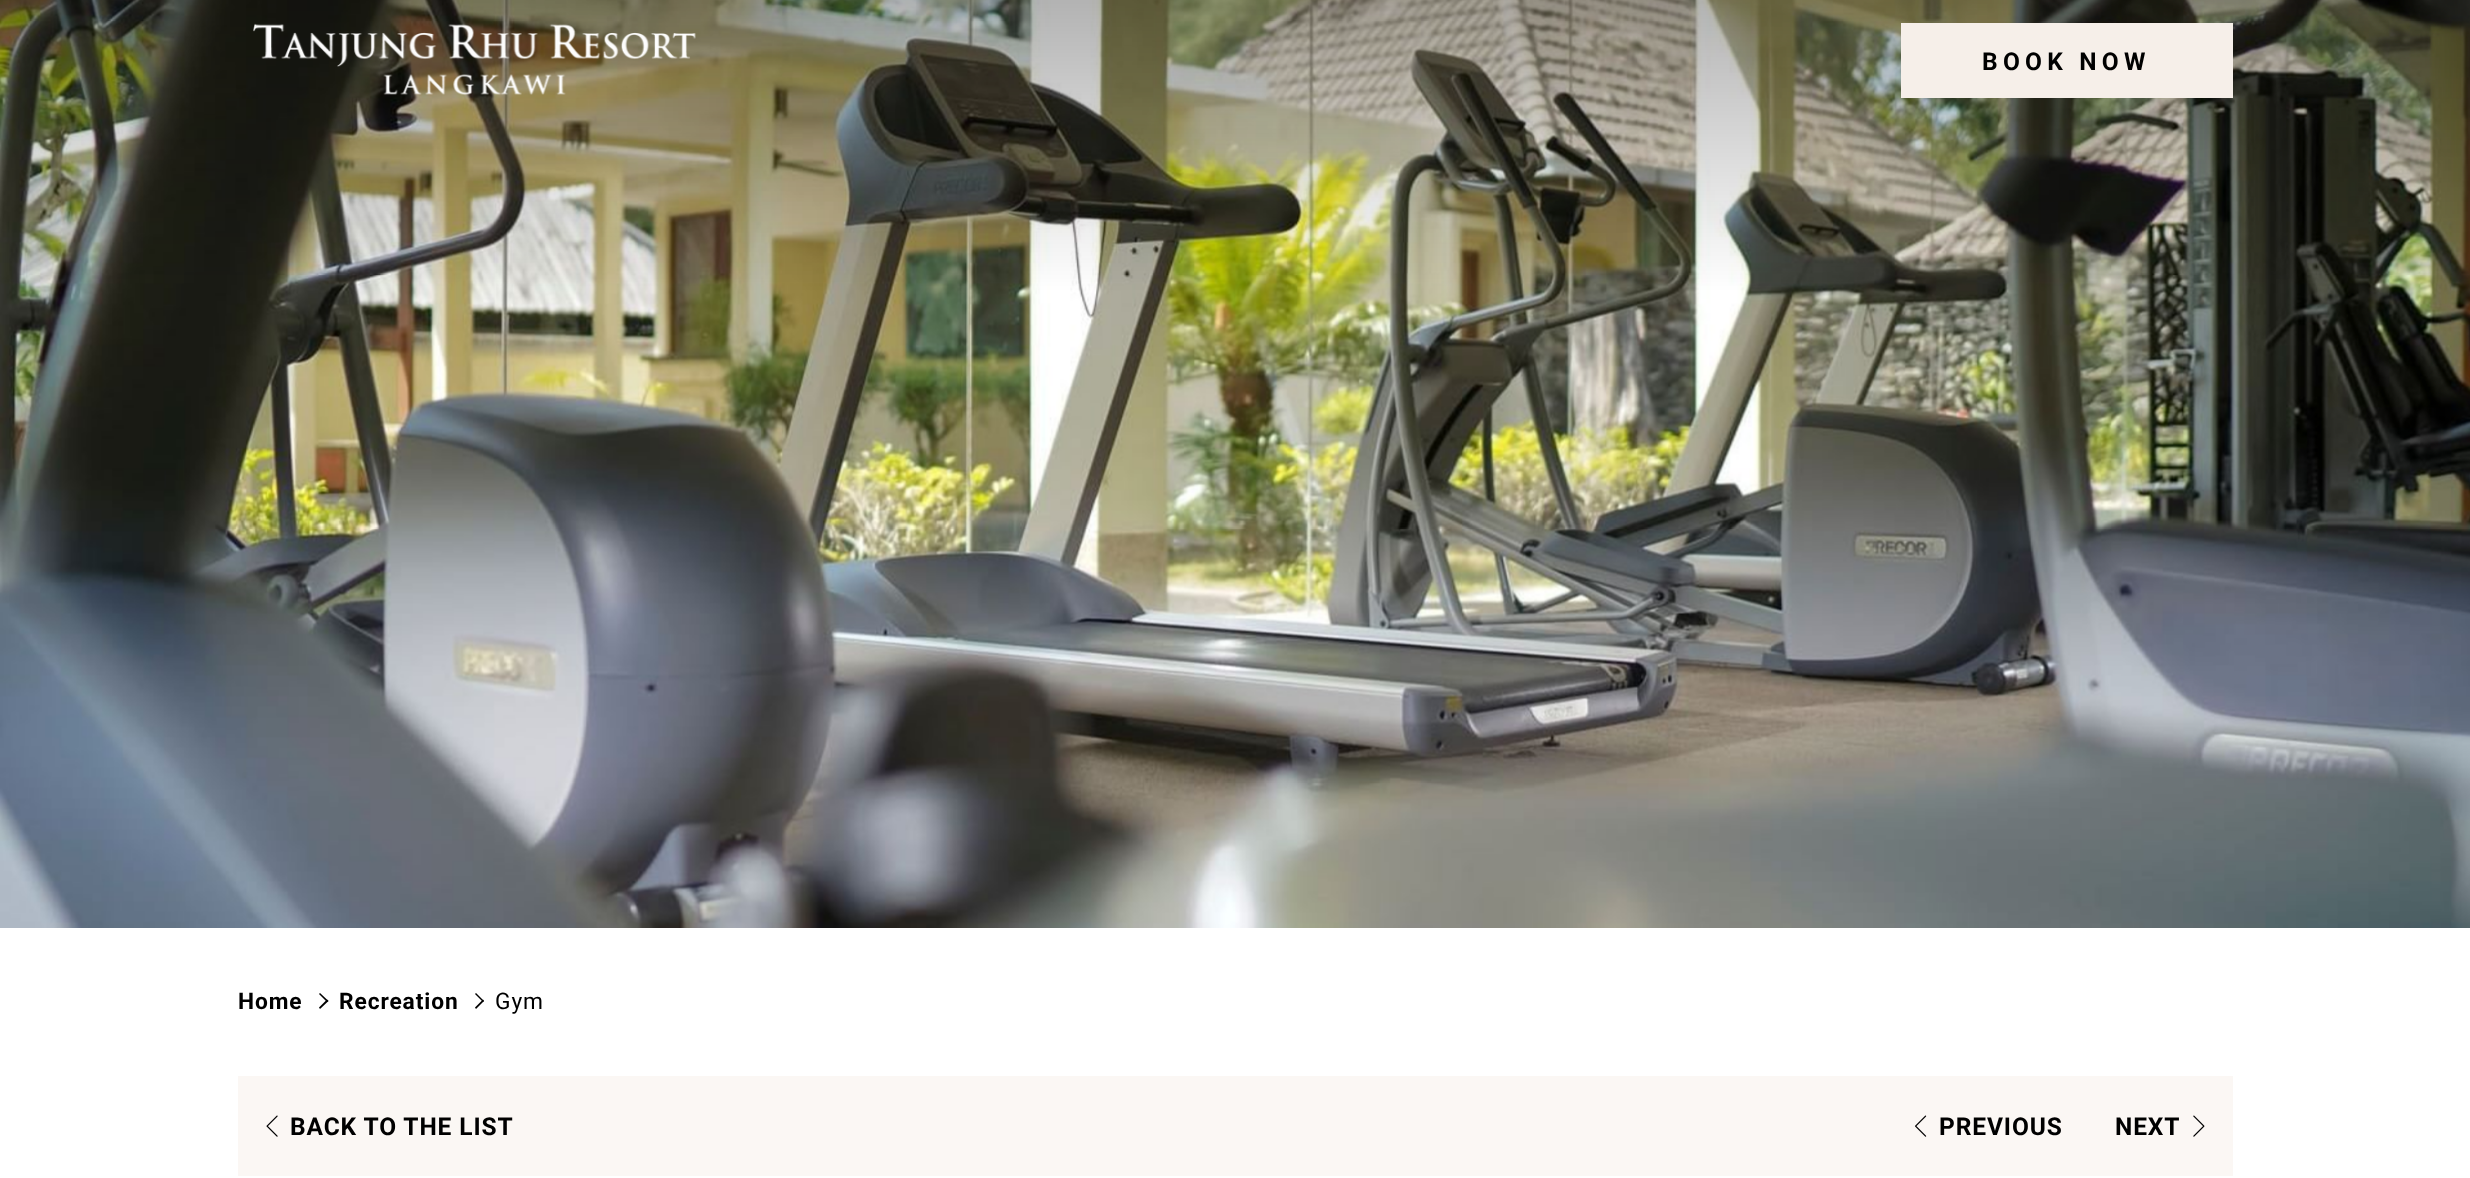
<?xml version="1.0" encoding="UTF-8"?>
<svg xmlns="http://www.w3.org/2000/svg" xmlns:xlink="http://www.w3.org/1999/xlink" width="2470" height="1178">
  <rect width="100%" height="100%" fill="#ffffff" />
  <image x="0" y="0" width="2470" height="928" xlink:href="image2.png" />
  <image x="253" y="23" width="443" height="72" xlink:href="image1.png" />
  <rect x="1901" y="23" width="332" height="75" fill="#f6efe9" />
  <path d="M 319 994 l 1 -1 l 8.5 8 l -1.5 1 z" fill="#000000" />
  <path d="M 319 1007.5 l 8 -8 l 1.5 1.5 l -8.5 8 z" fill="#000000" />
  <path d="M 475 994 l 1 -1 l 8 8 l -1 1 z" fill="#000000" />
  <path d="M 475 1007.5 l 8 -8 l 1 1.5 l -8 8 z" fill="#000000" />
  <rect x="238" y="1076" width="1995" height="100" fill="#fbf7f4" />
  <image x="266" y="1115" width="12" height="22" xlink:href="image3.png" />
  <image x="1915" y="1115" width="12" height="22" xlink:href="image4.png" />
  <image x="2193" y="1115" width="12" height="22" xlink:href="image5.png" />
  <text x="1982" y="70" style="font-family: Roboto; font-size: 24.5px; font-weight: bold; letter-spacing: 5.25px; fill: #000000">BOOK NOW</text>
  <text x="238" y="1009" style="font-family: Roboto; font-size: 22.75px; font-weight: bold; letter-spacing: 0.9px; fill: #000000">Home</text>
  <text x="339" y="1009" style="font-family: Roboto; font-size: 22.75px; font-weight: bold; letter-spacing: 0.9px; fill: #000000">Recreation</text>
  <text x="495" y="1009" style="font-family: Roboto; font-size: 22.75px; letter-spacing: 0.9px; fill: #000000">Gym</text>
  <text x="290" y="1135" style="font-family: Roboto; font-size: 24.5px; font-weight: bold; letter-spacing: 0.9px; fill: #000000">BACK TO THE LIST</text>
  <text x="1939" y="1135" style="font-family: Roboto; font-size: 24.5px; font-weight: bold; letter-spacing: 0.9px; fill: #000000">PREVIOUS</text>
  <text x="2115" y="1135" style="font-family: Roboto; font-size: 24.5px; font-weight: bold; letter-spacing: 0.9px; fill: #000000">NEXT</text>
</svg>
